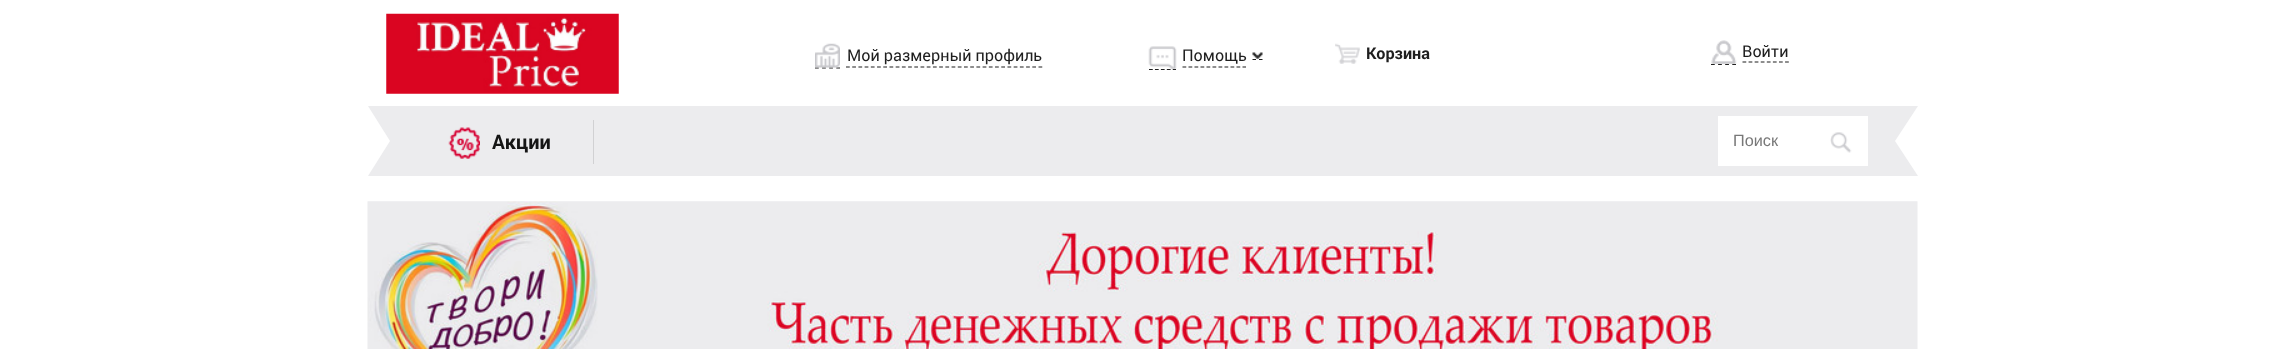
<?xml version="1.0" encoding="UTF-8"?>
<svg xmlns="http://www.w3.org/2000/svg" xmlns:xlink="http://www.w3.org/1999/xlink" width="2283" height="349">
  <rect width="100%" height="100%" fill="#ffffff" />
  <image x="386" y="13" width="233" height="81" xlink:href="image1.png" />
  <path d="M 815 68 h 25" fill="none" stroke="#1f1f1f" stroke-width="1.2" stroke-dasharray="3.75 3.34" />
  <path d="M 846 67 h 196.5" fill="none" stroke="#1f1f1f" stroke-width="1.2" stroke-dasharray="3.75 2.46" />
  <image x="815" y="43" width="25" height="25" xlink:href="image2.png" />
  <path d="M 1149 69.5 h 27" fill="none" stroke="#1f1f1f" stroke-width="1.2" stroke-dasharray="3.75 2.19" />
  <path d="M 1182.5 67 h 63.5" fill="none" stroke="#1f1f1f" stroke-width="1.2" stroke-dasharray="3.75 2.25" />
  <path d="M 1252.5 59.5 h 3.5 m 3 0 h 3.5" fill="none" stroke="#1f1f1f" stroke-width="1.2" />
  <image x="1148" y="46" width="29" height="23" xlink:href="image3.png" />
  <image x="1252" y="52" width="11" height="7" xlink:href="image4.png" />
  <image x="1335" y="43" width="25" height="21" xlink:href="image5.png" />
  <path d="M 1711 64.5 h 25" fill="none" stroke="#1f1f1f" stroke-width="1.2" stroke-dasharray="3.75 3.34" />
  <path d="M 1742.5 62 h 46.5" fill="none" stroke="#1f1f1f" stroke-width="1.2" stroke-dasharray="3.75 2.33" />
  <image x="1711" y="40" width="26" height="24" xlink:href="image6.png" />
  <rect x="368" y="106" width="1550" height="70" fill="#ececee" />
  <path d="M 368 176 v -70 l 22 35 z" fill="#ffffff" />
  <image x="448" y="127" width="32" height="32" xlink:href="image7.png" />
  <rect x="593" y="120" width="1" height="44" fill="#d1d1d3" />
  <rect x="1718" y="116" width="150" height="50" fill="#ffffff" />
  <image x="1830" y="132" width="22" height="21" xlink:href="image8.png" />
  <path d="M 1918 106 v 70 l -23 -35 z" fill="#ffffff" />
  <image x="367" y="201" width="1551" height="148" xlink:href="image9.png" />
  <text x="847" y="61" style="font-family: Roboto; font-size: 16.25px; fill: #1f1f1f">Мой размерный профиль</text>
  <text x="1182" y="61" style="font-family: Roboto; font-size: 16.25px; fill: #1f1f1f">Помощь</text>
  <text x="1366" y="59" style="font-family: Roboto; font-size: 16.25px; font-weight: bold; fill: #1f1f1f">Корзина</text>
  <text x="1742" y="57" style="font-family: Roboto; font-size: 16.25px; fill: #1f1f1f">Войти</text>
  <text x="492" y="149" style="font-family: Roboto; font-size: 20px; font-weight: bold; fill: #151515">Акции</text>
  <text x="1733" y="146" style="font-family: Liberation Sans; font-size: 16.25px; fill: #787878">Поиск</text>
</svg>
